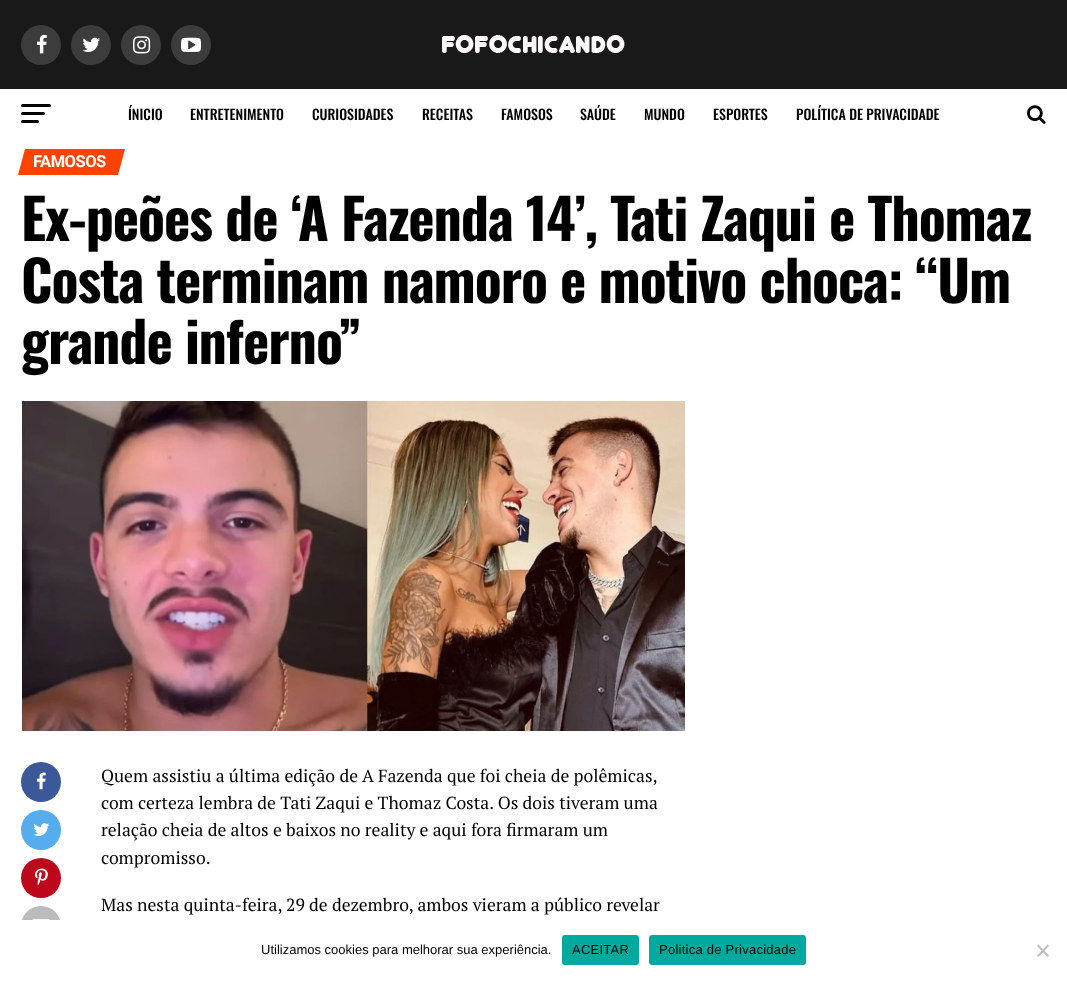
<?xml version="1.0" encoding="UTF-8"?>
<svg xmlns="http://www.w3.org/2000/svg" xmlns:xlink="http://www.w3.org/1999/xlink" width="1067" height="981">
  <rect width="100%" height="100%" fill="#ffffff" />
  <rect width="1067" height="89" fill="#191919" />
  <circle cx="41" cy="45" r="20" fill="#3c3c3c" />
  <image x="37" y="34" width="10" height="20" xlink:href="image1.png" />
  <circle cx="91" cy="45" r="20" fill="#3c3c3c" />
  <image x="82" y="37" width="18" height="15" xlink:href="image2.png" />
  <circle cx="141" cy="45" r="20" fill="#3c3c3c" />
  <image x="133" y="36" width="18" height="18" xlink:href="image3.png" />
  <circle cx="191" cy="45" r="20" fill="#3c3c3c" />
  <image x="181" y="37" width="20" height="15" xlink:href="image4.png" />
  <image x="442" y="35" width="183" height="18" xlink:href="image5.png" />
  <rect x="21" y="104" width="30" height="3" rx="1.5" fill="#000000" />
  <rect x="21" y="112" width="24" height="3" rx="1.5" fill="#000000" />
  <rect x="21" y="120" width="18" height="3" rx="1.5" fill="#000000" />
  <image x="1027" y="105" width="19" height="19" xlink:href="image6.png" />
  <path d="M 25 149 h 100 l -7 26 h -100 z" fill="#fc4300" />
  <image x="21" y="400" width="665" height="332" xlink:href="image7.png" />
  <circle cx="41" cy="782" r="20" fill="#3b5998" />
  <image x="36" y="772" width="10" height="18" xlink:href="image8.png" />
  <circle cx="41" cy="830" r="20" fill="#55acee" />
  <image x="33" y="823" width="17" height="13" xlink:href="image9.png" />
  <circle cx="41" cy="878" r="20" fill="#bd081c" />
  <image x="35" y="868" width="13" height="18" xlink:href="image10.png" />
  <circle cx="41" cy="926" r="20" fill="#bbbbbb" />
  <image x="32" y="919" width="18" height="1" xlink:href="image11.png" />
  <rect x="21" y="920" width="40" height="26" fill="#ffffff" />
  <rect x="562" y="935" width="77" height="30" rx="3" fill="#00a99d" />
  <rect x="649" y="935" width="157" height="30" rx="3" fill="#00a99d" />
  <path d="M 1047.5 944.5 l 1.5 1.5 l -10.5 11 l -1.5 -1.5 z" fill="#c0c0c0" />
  <path d="M 1037 946 l 1.5 -1.5 l 10.5 11 l -1.5 1.5 z" fill="#c0c0c0" />
  <text x="128" y="120" style="font-family: Oswald; font-size: 14px; font-weight: 500; fill: #000000">ÍNICIO</text>
  <text x="190" y="120" style="font-family: Oswald; font-size: 14px; font-weight: 500; fill: #000000">ENTRETENIMENTO</text>
  <text x="312" y="120" style="font-family: Oswald; font-size: 14px; font-weight: 500; fill: #000000">CURIOSIDADES</text>
  <text x="422" y="120" style="font-family: Oswald; font-size: 14px; font-weight: 500; fill: #000000">RECEITAS</text>
  <text x="501" y="120" style="font-family: Oswald; font-size: 14px; font-weight: 500; fill: #000000">FAMOSOS</text>
  <text x="580" y="120" style="font-family: Oswald; font-size: 14px; font-weight: 500; fill: #000000">SAÚDE</text>
  <text x="644" y="120" style="font-family: Oswald; font-size: 14px; font-weight: 500; fill: #000000">MUNDO</text>
  <text x="713" y="120" style="font-family: Oswald; font-size: 14px; font-weight: 500; fill: #000000">ESPORTES</text>
  <text x="796" y="120" style="font-family: Oswald; font-size: 14px; font-weight: 500; fill: #000000">POLÍTICA DE PRIVACIDADE</text>
  <text x="33" y="167" style="font-family: Roboto; font-size: 16.5px; font-weight: bold; letter-spacing: -0.5px; fill: #ffffff">FAMOSOS</text>
  <text x="21" y="241" style="font-family: Oswald; font-size: 56px; font-weight: bold; letter-spacing: -1.1px; fill: #000000">Ex-peões de ‘A Fazenda 14’, Tati Zaqui e Thomaz</text>
  <text x="21" y="303" style="font-family: Oswald; font-size: 56px; font-weight: bold; letter-spacing: -1.1px; fill: #000000">Costa terminam namoro e motivo choca: “Um</text>
  <text x="21" y="364" style="font-family: Oswald; font-size: 56px; font-weight: bold; letter-spacing: -1.1px; fill: #000000">grande inferno”</text>
  <text x="101" y="782" style="font-family: PT Serif; font-size: 17.6px; fill: #000000">Quem assistiu a última edição de A Fazenda que foi cheia de polêmicas,</text>
  <text x="101" y="809" style="font-family: PT Serif; font-size: 17.6px; fill: #000000">com certeza lembra de Tati Zaqui e Thomaz Costa. Os dois tiveram uma</text>
  <text x="101" y="836" style="font-family: PT Serif; font-size: 17.6px; fill: #000000">relação cheia de altos e baixos no reality e aqui fora firmaram um</text>
  <text x="101" y="864" style="font-family: PT Serif; font-size: 17.6px; fill: #000000">compromisso.</text>
  <text x="101" y="911" style="font-family: PT Serif; font-size: 17.6px; fill: #000000">Mas nesta quinta-feira, 29 de dezembro, ambos vieram a público revelar</text>
  <text x="261" y="954" style="font-family: Liberation Sans; font-size: 13px; fill: #000000">Utilizamos cookies para melhorar sua experiência.</text>
  <text x="572" y="954" style="font-family: Liberation Sans; font-size: 13px; letter-spacing: 0.25px; fill: #000000">ACEITAR</text>
  <text x="659" y="954" style="font-family: Liberation Sans; font-size: 13px; letter-spacing: 0.25px; fill: #000000">Politica de Privacidade</text>
</svg>
